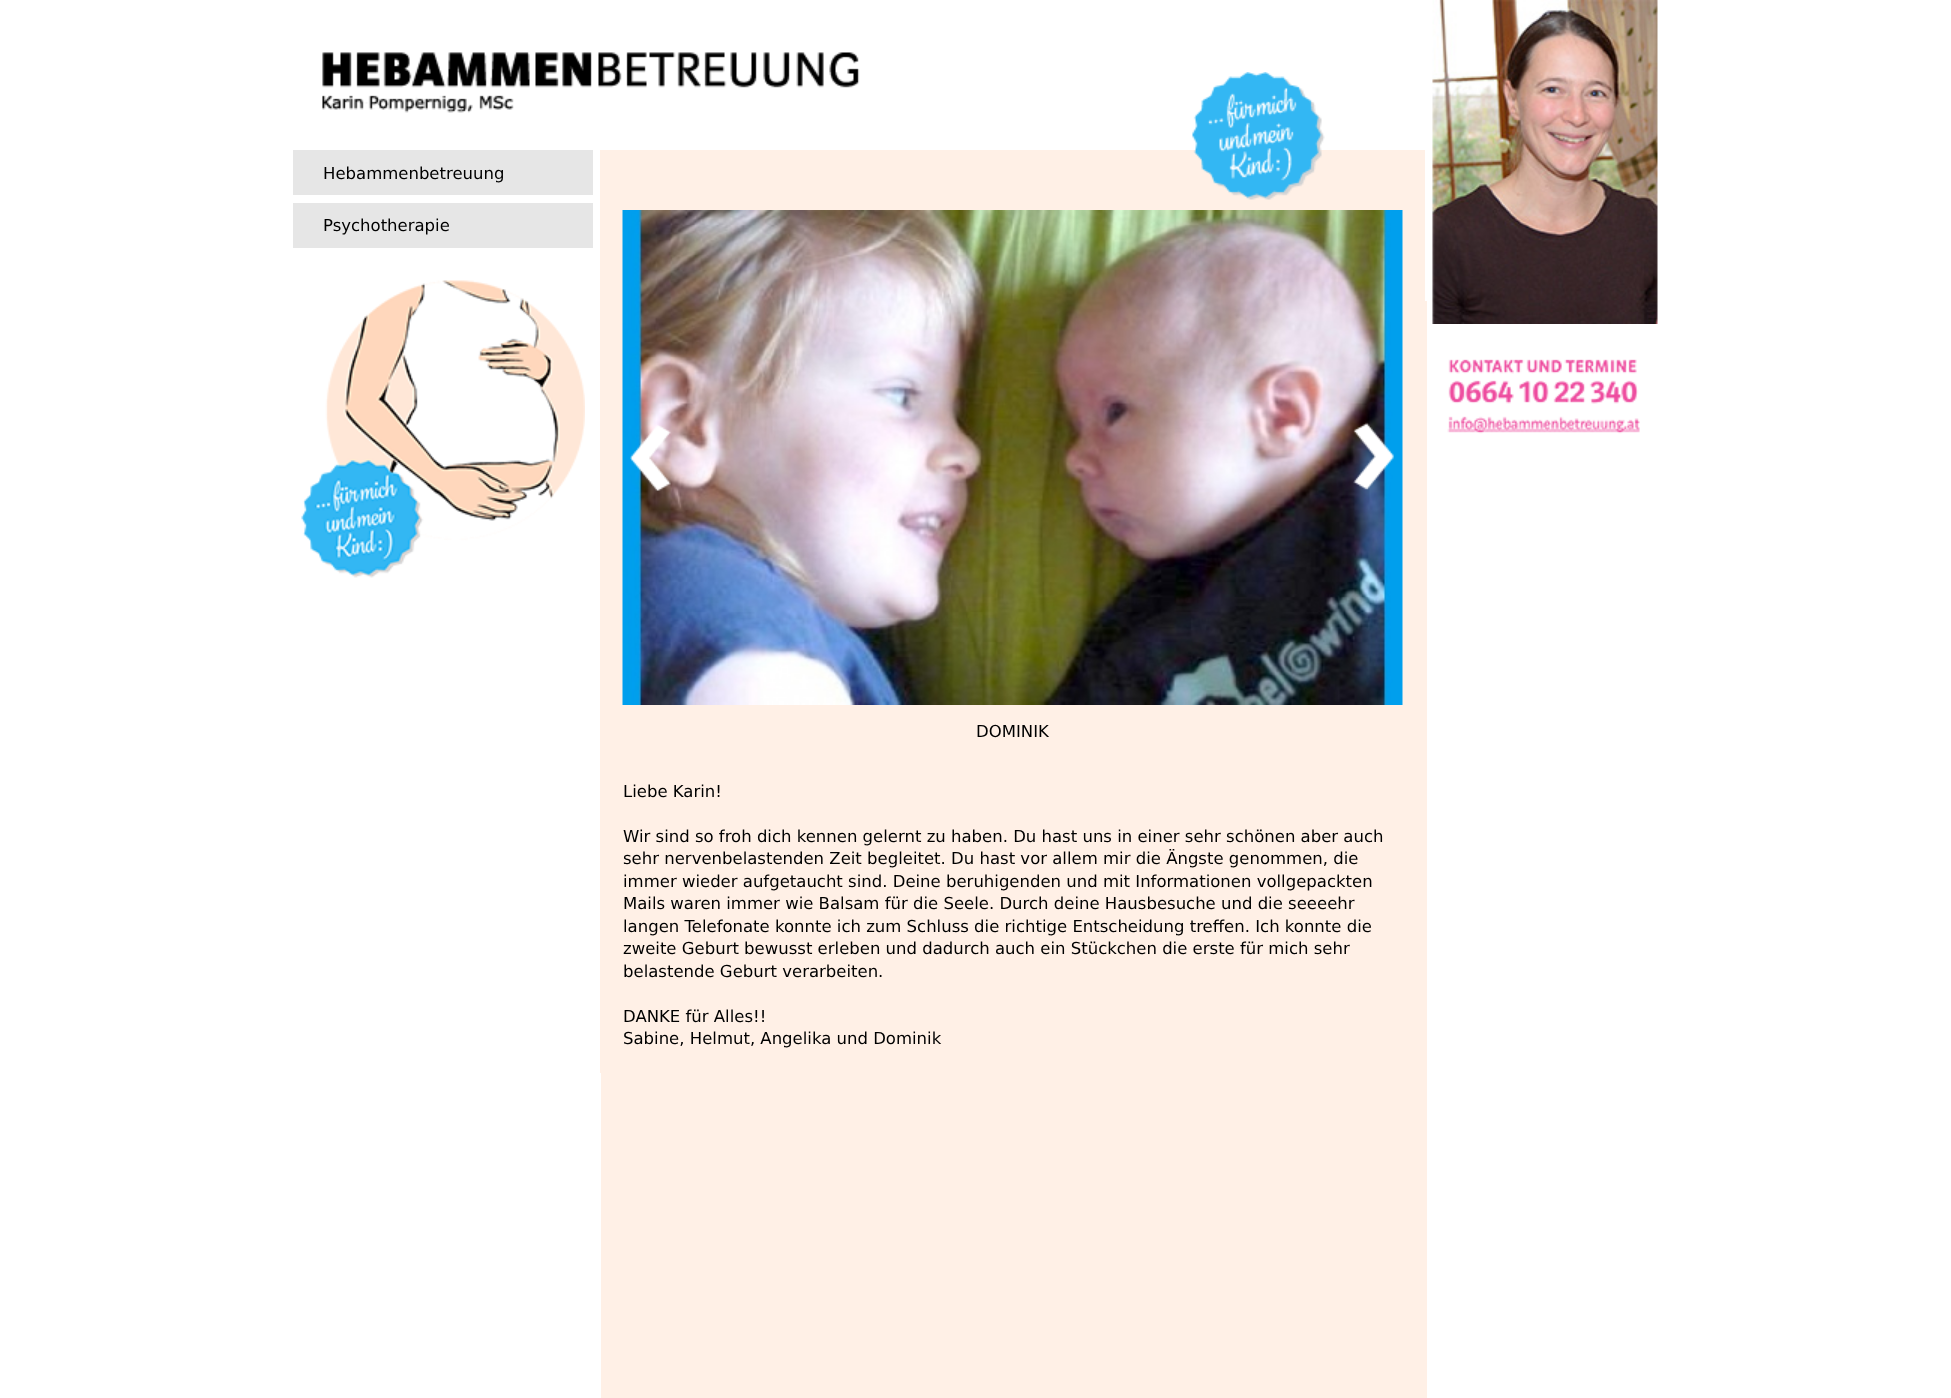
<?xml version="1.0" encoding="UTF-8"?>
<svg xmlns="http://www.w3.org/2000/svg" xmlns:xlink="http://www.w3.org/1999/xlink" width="1951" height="1398">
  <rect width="100%" height="100%" fill="#ffffff" />
  <rect x="601" y="301" width="826" height="1097" fill="#fff0e6" />
  <image x="322" y="52" width="538" height="61" xlink:href="image1.png" />
  <rect x="600" y="150" width="825" height="923" fill="#fff0e6" />
  <image x="1192" y="72" width="133" height="128" xlink:href="image2.png" />
  <rect x="293" y="150" width="300" height="45" fill="#e6e6e6" />
  <rect x="293" y="203" width="300" height="45" fill="#e6e6e6" />
  <image x="301" y="280" width="284" height="298" xlink:href="image3.png" />
  <image x="622" y="210" width="781" height="495" xlink:href="image4.png" />
  <image x="630" y="425" width="41" height="66" xlink:href="image5.png" />
  <image x="1353" y="422" width="41" height="68" xlink:href="image6.png" />
  <image x="1432" y="0" width="226" height="324" xlink:href="image7.png" />
  <image x="1447" y="359" width="193" height="75" xlink:href="image8.png" />
  <text x="323" y="179" style="font-family: DejaVu Sans; font-size: 16.5px; fill: #000000">Hebammenbetreuung</text>
  <text x="323" y="231" style="font-family: DejaVu Sans; font-size: 16.5px; fill: #000000">Psychotherapie</text>
  <text x="976" y="737" style="font-family: DejaVu Sans; font-size: 16.5px; fill: #000000">DOMINIK</text>
  <text x="623" y="797" style="font-family: DejaVu Sans; font-size: 16.5px; fill: #000000">Liebe Karin!</text>
  <text x="623" y="842" style="font-family: DejaVu Sans; font-size: 16.5px; fill: #000000">Wir sind so froh dich kennen gelernt zu haben. Du hast uns in einer sehr schönen aber auch</text>
  <text x="623" y="864" style="font-family: DejaVu Sans; font-size: 16.5px; fill: #000000">sehr nervenbelastenden Zeit begleitet. Du hast vor allem mir die Ängste genommen, die</text>
  <text x="623" y="887" style="font-family: DejaVu Sans; font-size: 16.5px; fill: #000000">immer wieder aufgetaucht sind. Deine beruhigenden und mit Informationen vollgepackten</text>
  <text x="623" y="909" style="font-family: DejaVu Sans; font-size: 16.5px; fill: #000000">Mails waren immer wie Balsam für die Seele. Durch deine Hausbesuche und die seeeehr</text>
  <text x="623" y="932" style="font-family: DejaVu Sans; font-size: 16.5px; fill: #000000">langen Telefonate konnte ich zum Schluss die richtige Entscheidung treffen. Ich konnte die</text>
  <text x="623" y="954" style="font-family: DejaVu Sans; font-size: 16.5px; fill: #000000">zweite Geburt bewusst erleben und dadurch auch ein Stückchen die erste für mich sehr</text>
  <text x="623" y="977" style="font-family: DejaVu Sans; font-size: 16.5px; fill: #000000">belastende Geburt verarbeiten.</text>
  <text x="623" y="1022" style="font-family: DejaVu Sans; font-size: 16.5px; fill: #000000">DANKE für Alles!!</text>
  <text x="623" y="1044" style="font-family: DejaVu Sans; font-size: 16.5px; fill: #000000">Sabine, Helmut, Angelika und Dominik</text>
</svg>
